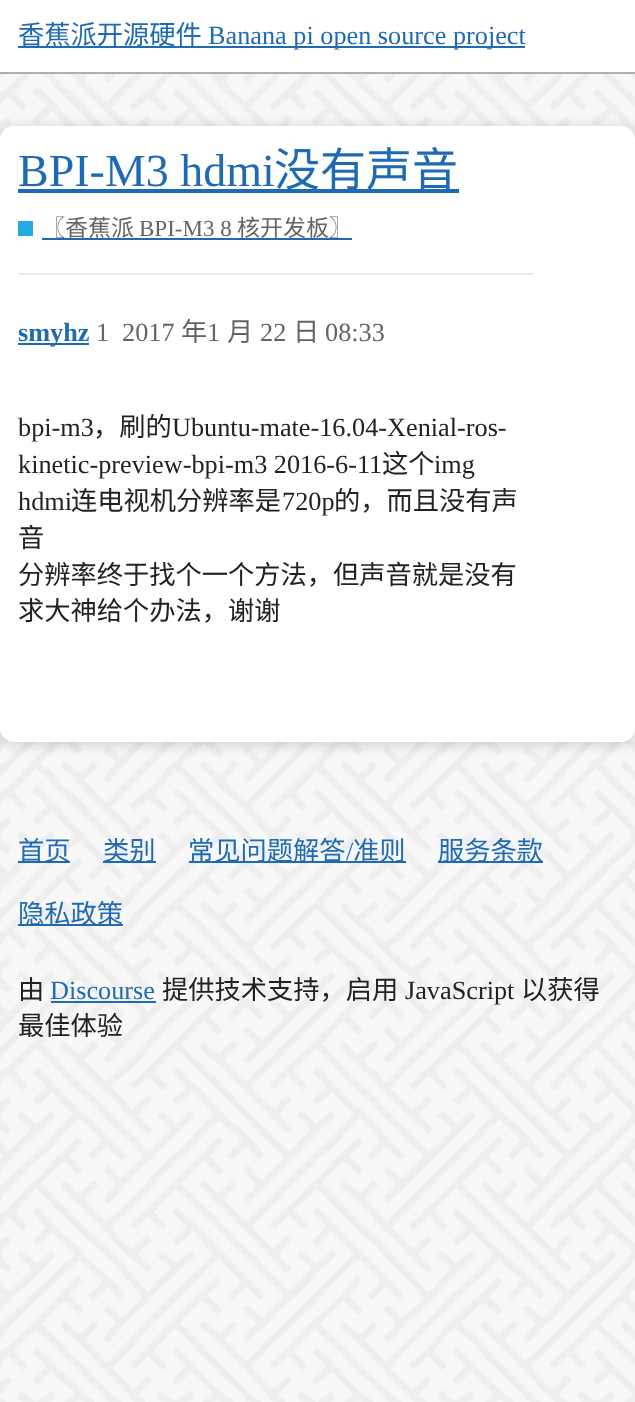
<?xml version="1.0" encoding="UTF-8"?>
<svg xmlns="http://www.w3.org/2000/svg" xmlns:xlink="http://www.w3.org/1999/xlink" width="635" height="1402">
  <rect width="100%" height="100%" fill="#f8f8f8" />
  <rect width="635" height="72" fill="#ffffff" />
  <rect y="72" width="635" height="2" fill="#afafaf" />
  <rect x="18" y="46" width="507" height="2" fill="#1f6ab5" />
  <image x="0" y="74" width="635" height="1328" xlink:href="image1.png" />
  <rect y="128" width="635" height="616" rx="14" fill="#000000" fill-opacity="0.18" filter="blur(7px)" />
  <rect y="126" width="635" height="616" rx="14" fill="#ffffff" />
  <rect x="18" y="189" width="441" height="4" fill="#1f6ab5" />
  <rect x="18" y="221" width="15" height="15" fill="#25aae2" />
  <rect x="42" y="238" width="310" height="2" fill="#1f6ab5" />
  <rect x="18" y="273" width="516" height="2" fill="#e9e9e9" />
  <rect x="18" y="343" width="71" height="2" fill="#1f6ab5" />
  <rect x="18" y="861" width="52" height="2" fill="#1f6ab5" />
  <rect x="103" y="861" width="53" height="2" fill="#1f6ab5" />
  <rect x="189" y="861" width="217" height="2" fill="#1f6ab5" />
  <rect x="438" y="861" width="105" height="2" fill="#1f6ab5" />
  <rect x="18" y="924" width="105" height="2" fill="#1f6ab5" />
  <rect x="51" y="1001" width="105" height="2" fill="#1f6ab5" />
  <text x="18" y="44" style="font-family: Noto Sans CJK SC; font-size: 26.25px; fill: #1f6ab5">香蕉派开源硬件</text>
  <text x="208" y="44" style="font-family: Liberation Serif; font-size: 26.25px; fill: #1f6ab5">Banana pi open source project</text>
  <text x="18" y="186" style="font-family: Liberation Serif; font-size: 46px; fill: #1f6ab5">BPI-M3 hdmi</text>
  <text x="274" y="186" style="font-family: Noto Sans CJK SC; font-size: 46px; fill: #1f6ab5">没有声音</text>
  <text x="42" y="236" style="font-family: Noto Sans CJK SC; font-size: 23px; fill: #646464">〖香蕉派</text>
  <text x="139" y="236" style="font-family: Liberation Serif; font-size: 23px; fill: #646464">BPI-M3 8</text>
  <text x="237" y="236" style="font-family: Noto Sans CJK SC; font-size: 23px; fill: #646464">核开发板〗</text>
  <text x="18" y="341" style="font-family: Liberation Serif; font-size: 26.25px; font-weight: bold; fill: #1f6ab5">smyhz</text>
  <text x="96" y="341" style="font-family: Liberation Serif; font-size: 26.25px; fill: #646464">1</text>
  <text x="122" y="341" style="font-family: Liberation Serif; font-size: 26.25px; fill: #646464">2017</text>
  <text x="181" y="341" style="font-family: Noto Sans CJK SC; font-size: 26.25px; fill: #646464">年</text>
  <text x="207" y="341" style="font-family: Liberation Serif; font-size: 26.25px; fill: #646464">1</text>
  <text x="227" y="341" style="font-family: Noto Sans CJK SC; font-size: 26.25px; fill: #646464">月</text>
  <text x="260" y="341" style="font-family: Liberation Serif; font-size: 26.25px; fill: #646464">22</text>
  <text x="293" y="341" style="font-family: Noto Sans CJK SC; font-size: 26.25px; fill: #646464">日</text>
  <text x="325" y="341" style="font-family: Liberation Serif; font-size: 26.25px; fill: #646464">08:33</text>
  <text x="18" y="436" style="font-family: Liberation Serif; font-size: 26.25px; fill: #222222">bpi-m3</text>
  <text x="93" y="436" style="font-family: Noto Sans CJK SC; font-size: 26.25px; fill: #222222">，刷的</text>
  <text x="172" y="436" style="font-family: Liberation Serif; font-size: 26.25px; fill: #222222">Ubuntu-mate-16.04-Xenial-ros-</text>
  <text x="18" y="473" style="font-family: Liberation Serif; font-size: 26.25px; fill: #222222">kinetic-preview-bpi-m3 2016-6-11</text>
  <text x="382" y="473" style="font-family: Noto Sans CJK SC; font-size: 26.25px; fill: #222222">这个</text>
  <text x="434" y="473" style="font-family: Liberation Serif; font-size: 26.25px; fill: #222222">img</text>
  <text x="18" y="510" style="font-family: Liberation Serif; font-size: 26.25px; fill: #222222">hdmi</text>
  <text x="71" y="510" style="font-family: Noto Sans CJK SC; font-size: 26.25px; fill: #222222">连电视机分辨率是</text>
  <text x="282" y="510" style="font-family: Liberation Serif; font-size: 26.25px; fill: #222222">720p</text>
  <text x="334" y="510" style="font-family: Noto Sans CJK SC; font-size: 26.25px; fill: #222222">的，而且没有声</text>
  <text x="18" y="547" style="font-family: Noto Sans CJK SC; font-size: 26.25px; fill: #222222">音</text>
  <text x="18" y="584" style="font-family: Noto Sans CJK SC; font-size: 26.25px; fill: #222222">分辨率终于找个一个方法，但声音就是没有</text>
  <text x="18" y="620" style="font-family: Noto Sans CJK SC; font-size: 26.25px; fill: #222222">求大神给个办法，谢谢</text>
  <text x="18" y="860" style="font-family: Noto Sans CJK SC; font-size: 26.25px; fill: #1f6ab5">首页</text>
  <text x="103" y="860" style="font-family: Noto Sans CJK SC; font-size: 26.25px; fill: #1f6ab5">类别</text>
  <text x="188" y="860" style="font-family: Noto Sans CJK SC; font-size: 26.25px; fill: #1f6ab5">常见问题解答</text>
  <text x="346" y="860" style="font-family: Liberation Serif; font-size: 26.25px; fill: #1f6ab5">/</text>
  <text x="353" y="860" style="font-family: Noto Sans CJK SC; font-size: 26.25px; fill: #1f6ab5">准则</text>
  <text x="438" y="860" style="font-family: Noto Sans CJK SC; font-size: 26.25px; fill: #1f6ab5">服务条款</text>
  <text x="18" y="923" style="font-family: Noto Sans CJK SC; font-size: 26.25px; fill: #1f6ab5">隐私政策</text>
  <text x="18" y="999" style="font-family: Noto Sans CJK SC; font-size: 26.25px; fill: #222222">由</text>
  <text x="50" y="999" style="font-family: Liberation Serif; font-size: 26.25px; fill: #1f6ab5">Discourse</text>
  <text x="162" y="999" style="font-family: Noto Sans CJK SC; font-size: 26.25px; fill: #222222">提供技术支持，启用</text>
  <text x="405" y="999" style="font-family: Liberation Serif; font-size: 26.25px; fill: #222222">JavaScript</text>
  <text x="521" y="999" style="font-family: Noto Sans CJK SC; font-size: 26.25px; fill: #222222">以获得</text>
  <text x="18" y="1035" style="font-family: Noto Sans CJK SC; font-size: 26.25px; fill: #222222">最佳体验</text>
</svg>
